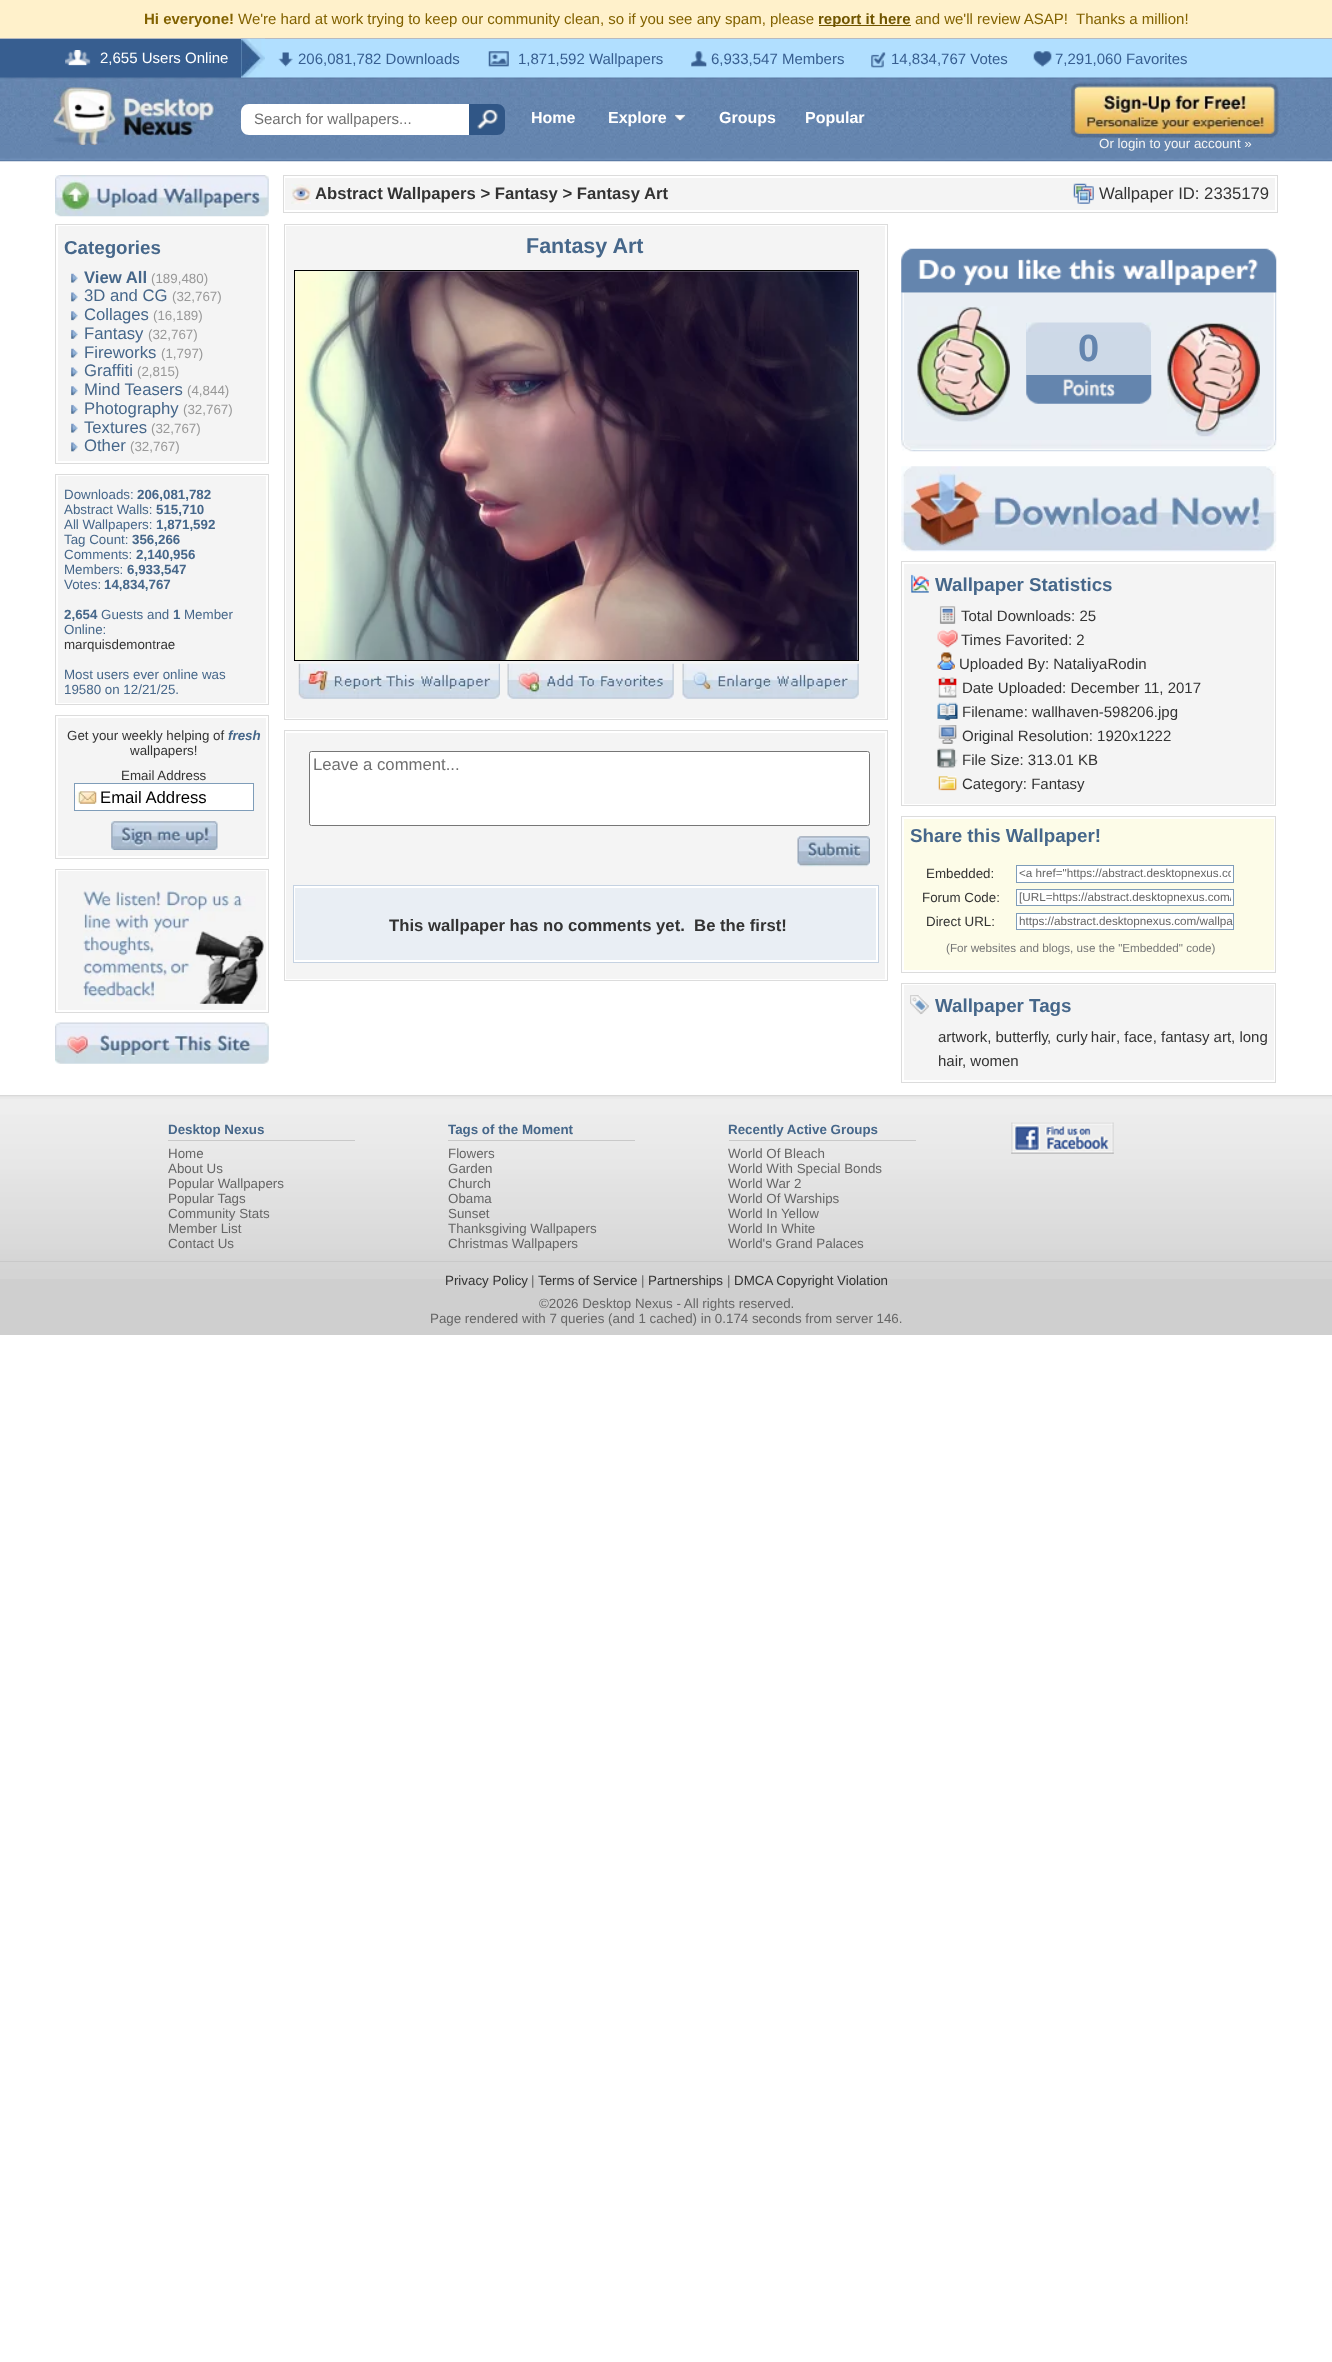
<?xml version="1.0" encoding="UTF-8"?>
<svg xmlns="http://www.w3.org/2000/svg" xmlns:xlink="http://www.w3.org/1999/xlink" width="1332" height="2362">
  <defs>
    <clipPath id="clip1"><rect x="1019" y="868" width="212" height="12" /></clipPath>
    <clipPath id="clip2"><rect x="1019" y="891" width="212" height="13" /></clipPath>
  </defs>
  <rect width="100%" height="100%" fill="#ffffff" />
  <rect width="1332" height="38" fill="#fff1cb" />
  <rect x="819" y="25" width="92" height="1" fill="#705500" />
  <rect x="241" y="39" width="1091" height="39" fill="#b1dfff" />
  <rect y="38" width="1332" height="1" fill="#b6bac0" />
  <rect y="39" width="241" height="39" fill="#375e90" />
  <image x="65" y="50" width="26" height="16" xlink:href="image1.png" />
  <image x="241" y="38" width="24" height="40" xlink:href="image2.png" />
  <image x="278" y="52" width="15" height="15" xlink:href="image3.png" />
  <image x="488" y="51" width="21" height="16" xlink:href="image4.png" />
  <image x="691" y="51" width="16" height="16" xlink:href="image5.png" />
  <image x="871" y="52" width="15" height="16" xlink:href="image6.png" />
  <image x="1033" y="51" width="19" height="16" xlink:href="image7.png" />
  <image x="0" y="77" width="1332" height="85" xlink:href="image8.png" />
  <image x="53" y="87" width="161" height="58" xlink:href="image9.png" />
  <path d="M 249 104 h 240 v 31 h -240 c -4.5 0 -8 -3.5 -8 -8 v -15 c 0 -4.5 3.5 -8 8 -8 z" fill="#ffffff" />
  <path d="M 469 104 h 28 c 4.5 0 8 3.5 8 8 v 15 c 0 4.5 -3.5 8 -8 8 h -28 z" fill="#305686" />
  <image x="477" y="109" width="21" height="20" xlink:href="image10.png" />
  <image x="673" y="114" width="14" height="7" xlink:href="image11.png" />
  <image x="1071" y="82" width="208" height="56" xlink:href="image12.png" />
  <image x="55" y="175" width="214" height="42" xlink:href="image13.png" />
  <rect x="55.5" y="224.5" width="213" height="239" fill="none" stroke="#dcdcdc" />
  <rect x="58" y="226" width="208" height="235" fill="#f4f4f4" />
  <image x="71" y="273" width="7" height="10" xlink:href="image14.png" />
  <image x="71" y="292" width="7" height="10" xlink:href="image15.png" />
  <image x="71" y="311" width="7" height="10" xlink:href="image16.png" />
  <image x="71" y="329" width="7" height="10" xlink:href="image17.png" />
  <image x="71" y="348" width="7" height="10" xlink:href="image14.png" />
  <image x="71" y="367" width="7" height="10" xlink:href="image18.png" />
  <image x="71" y="386" width="7" height="10" xlink:href="image16.png" />
  <image x="71" y="404" width="7" height="10" xlink:href="image17.png" />
  <image x="71" y="423" width="7" height="10" xlink:href="image14.png" />
  <image x="71" y="442" width="7" height="10" xlink:href="image18.png" />
  <rect x="55.5" y="474.5" width="213" height="230" fill="none" stroke="#dcdcdc" />
  <rect x="58" y="476" width="208" height="227" fill="#f4f4f4" />
  <rect x="55.5" y="715.5" width="213" height="143" fill="none" stroke="#dcdcdc" />
  <rect x="58" y="718" width="208" height="138" fill="#f4f4f4" />
  <rect x="75" y="784" width="178" height="26" fill="#ffffff" />
  <image x="75" y="791" width="22" height="13" xlink:href="image19.png" />
  <rect x="74.5" y="783.5" width="179" height="27" fill="none" stroke="#7f9db9" />
  <image x="111" y="821" width="107" height="29" xlink:href="image20.png" />
  <rect x="55.5" y="869.5" width="213" height="143" fill="none" stroke="#dcdcdc" />
  <rect x="58" y="871" width="208" height="139" fill="#f4f4f4" />
  <image x="83" y="890" width="181" height="114" xlink:href="image21.png" />
  <image x="55" y="1022" width="214" height="42" xlink:href="image22.png" />
  <rect x="283.5" y="175.5" width="994" height="37" fill="none" stroke="#dcdcdc" />
  <rect x="285" y="178" width="990" height="32" fill="#f4f4f4" />
  <image x="291" y="184" width="20" height="20" xlink:href="image23.png" />
  <image x="1073" y="183" width="21" height="21" xlink:href="image24.png" />
  <rect x="284.5" y="224.5" width="603" height="495" fill="none" stroke="#dcdcdc" />
  <rect x="286" y="226" width="599" height="492" fill="#f4f4f4" />
  <rect x="294.5" y="270.5" width="564" height="390" fill="none" stroke="#000000" />
  <image x="295" y="271" width="563" height="389" xlink:href="image25.png" />
  <image x="298" y="663" width="202" height="36" xlink:href="image26.png" />
  <image x="507" y="663" width="167" height="36" xlink:href="image27.png" />
  <image x="682" y="663" width="177" height="36" xlink:href="image28.png" />
  <rect x="284.5" y="730.5" width="603" height="250" fill="none" stroke="#dcdcdc" />
  <rect x="286" y="733" width="599" height="246" fill="#f4f4f4" />
  <rect x="309.5" y="751.5" width="560" height="74" rx="2" fill="#ffffff" stroke="#767676" />
  <image x="797" y="836" width="73" height="31" xlink:href="image29.png" />
  <rect x="293.5" y="885.5" width="585" height="77" fill="#ffffff" stroke="#c5d2e2" />
  <rect x="295" y="888" width="581" height="72" fill="#e9eef4" />
  <image x="901" y="292" width="376" height="148" xlink:href="image31.png" />
  <image x="901" y="248" width="376" height="45" xlink:href="image30.png" />
  <image x="917" y="306" width="93" height="116" xlink:href="image32.png" />
  <rect x="1026" y="323" width="125" height="52" fill="#cdd9e7" />
  <image x="1026" y="322" width="126" height="10" xlink:href="image33.png" />
  <image x="1026" y="375" width="126" height="29" xlink:href="image34.png" />
  <image x="1167" y="322" width="93" height="115" xlink:href="image35.png" />
  <image x="901" y="440" width="376" height="12" xlink:href="image36.png" />
  <image x="901" y="466" width="376" height="86" xlink:href="image37.png" />
  <rect x="901.5" y="561.5" width="374" height="244" fill="none" stroke="#dcdcdc" />
  <rect x="904" y="564" width="370" height="240" fill="#f4f4f4" />
  <image x="911" y="574" width="18" height="19" xlink:href="image38.png" />
  <image x="939" y="606" width="17" height="18" xlink:href="image39.png" />
  <image x="937" y="629" width="21" height="19" xlink:href="image40.png" />
  <image x="937" y="652" width="18" height="18" xlink:href="image41.png" />
  <image x="938" y="677" width="19" height="21" xlink:href="image42.png" />
  <image x="937" y="702" width="21" height="19" xlink:href="image43.png" />
  <image x="938" y="725" width="19" height="19" xlink:href="image44.png" />
  <image x="937" y="748" width="21" height="20" xlink:href="image45.png" />
  <image x="938" y="776" width="19" height="15" xlink:href="image46.png" />
  <rect x="901.5" y="816.5" width="374" height="156" fill="none" stroke="#dcdcdc" />
  <rect x="904" y="819" width="370" height="151" fill="#fdfce8" />
  <rect x="1016.5" y="865.5" width="217" height="17" fill="#ffffff" stroke="#7f9db9" />
  <rect x="1016.5" y="889.5" width="217" height="16" fill="#ffffff" stroke="#7f9db9" />
  <rect x="1016.5" y="913.5" width="217" height="16" fill="#ffffff" stroke="#7f9db9" />
  <rect x="901.5" y="983.5" width="374" height="99" fill="none" stroke="#dcdcdc" />
  <rect x="904" y="985" width="370" height="95" fill="#f4f4f4" />
  <image x="910" y="995" width="19" height="20" xlink:href="image47.png" />
  <rect y="1279" width="1332" height="56" fill="#cfcfcf" />
  <image x="0" y="1095" width="1332" height="184" xlink:href="image48.png" />
  <rect x="168" y="1140" width="187" height="1" fill="#c9c9c9" />
  <rect x="448" y="1140" width="187" height="1" fill="#c9c9c9" />
  <rect x="729" y="1140" width="187" height="1" fill="#c9c9c9" />
  <image x="1011" y="1122" width="103" height="32" xlink:href="image49.png" />
  <rect y="1261" width="1332" height="1" fill="#c9c9c9" />
  <text x="144" y="24" style="font-family: Liberation Sans; font-size: 15px; font-weight: bold; fill: #826200">Hi everyone!</text>
  <text x="238" y="24" style="font-family: Liberation Sans; font-size: 15px; fill: #826200">We're hard at work trying to keep our community clean, so if you see any spam, please</text>
  <text x="818" y="24" style="font-family: Liberation Sans; font-size: 15px; font-weight: bold; fill: #705500">report it here</text>
  <text x="915" y="24" style="font-family: Liberation Sans; font-size: 15px; fill: #826200" xml:space="preserve">and we'll review ASAP!  Thanks a million!</text>
  <text x="100" y="63" style="font-family: Liberation Sans; font-size: 15px; fill: #ffffff">2,655 Users Online</text>
  <text x="298" y="64" style="font-family: Liberation Sans; font-size: 15px; fill: #375e90">206,081,782 Downloads</text>
  <text x="518" y="64" style="font-family: Liberation Sans; font-size: 15px; fill: #375e90">1,871,592 Wallpapers</text>
  <text x="711" y="64" style="font-family: Liberation Sans; font-size: 15px; fill: #375e90">6,933,547 Members</text>
  <text x="891" y="64" style="font-family: Liberation Sans; font-size: 15px; fill: #375e90">14,834,767 Votes</text>
  <text x="1055" y="64" style="font-family: Liberation Sans; font-size: 15px; fill: #375e90">7,291,060 Favorites</text>
  <text x="254" y="124" style="font-family: Liberation Sans; font-size: 15px; fill: #707070">Search for wallpapers...</text>
  <text x="531" y="123" style="font-family: Liberation Sans; font-size: 16px; font-weight: bold; fill: #ffffff">Home</text>
  <text x="608" y="123" style="font-family: Liberation Sans; font-size: 16px; font-weight: bold; fill: #ffffff">Explore</text>
  <text x="719" y="123" style="font-family: Liberation Sans; font-size: 16px; font-weight: bold; fill: #ffffff">Groups</text>
  <text x="805" y="123" style="font-family: Liberation Sans; font-size: 16px; font-weight: bold; fill: #ffffff">Popular</text>
  <text x="1099" y="148" style="font-family: Liberation Sans; font-size: 13.35px; fill: #f4f4f4">Or login to your account »</text>
  <text x="64" y="254" style="font-family: Liberation Sans; font-size: 18.75px; font-weight: bold; fill: #46678a">Categories</text>
  <text x="84" y="283" style="font-family: Liberation Sans; font-size: 16.7px; font-weight: bold; fill: #46678a">View All</text>
  <text x="151" y="283" style="font-family: Liberation Sans; font-size: 13.35px; fill: #999999">(189,480)</text>
  <text x="84" y="301" style="font-family: Liberation Sans; font-size: 16.7px; fill: #46678a">3D and CG</text>
  <text x="172" y="301" style="font-family: Liberation Sans; font-size: 13.35px; fill: #999999">(32,767)</text>
  <text x="84" y="320" style="font-family: Liberation Sans; font-size: 16.7px; fill: #46678a">Collages</text>
  <text x="153" y="320" style="font-family: Liberation Sans; font-size: 13.35px; fill: #999999">(16,189)</text>
  <text x="84" y="339" style="font-family: Liberation Sans; font-size: 16.7px; fill: #46678a">Fantasy</text>
  <text x="148" y="339" style="font-family: Liberation Sans; font-size: 13.35px; fill: #999999">(32,767)</text>
  <text x="84" y="358" style="font-family: Liberation Sans; font-size: 16.7px; fill: #46678a">Fireworks</text>
  <text x="161" y="358" style="font-family: Liberation Sans; font-size: 13.35px; fill: #999999">(1,797)</text>
  <text x="84" y="376" style="font-family: Liberation Sans; font-size: 16.7px; fill: #46678a">Graffiti</text>
  <text x="137" y="376" style="font-family: Liberation Sans; font-size: 13.35px; fill: #999999">(2,815)</text>
  <text x="84" y="395" style="font-family: Liberation Sans; font-size: 16.7px; fill: #46678a">Mind Teasers</text>
  <text x="187" y="395" style="font-family: Liberation Sans; font-size: 13.35px; fill: #999999">(4,844)</text>
  <text x="84" y="414" style="font-family: Liberation Sans; font-size: 16.7px; fill: #46678a">Photography</text>
  <text x="183" y="414" style="font-family: Liberation Sans; font-size: 13.35px; fill: #999999">(32,767)</text>
  <text x="84" y="433" style="font-family: Liberation Sans; font-size: 16.7px; fill: #46678a">Textures</text>
  <text x="151" y="433" style="font-family: Liberation Sans; font-size: 13.35px; fill: #999999">(32,767)</text>
  <text x="84" y="451" style="font-family: Liberation Sans; font-size: 16.7px; fill: #46678a">Other</text>
  <text x="130" y="451" style="font-family: Liberation Sans; font-size: 13.35px; fill: #999999">(32,767)</text>
  <text x="64" y="499" style="font-family: Liberation Sans; font-size: 13.35px; fill: #46678a">Downloads:</text>
  <text x="137" y="499" style="font-family: Liberation Sans; font-size: 13.35px; font-weight: bold; fill: #46678a">206,081,782</text>
  <text x="64" y="514" style="font-family: Liberation Sans; font-size: 13.35px; fill: #46678a">Abstract Walls:</text>
  <text x="156" y="514" style="font-family: Liberation Sans; font-size: 13.35px; font-weight: bold; fill: #46678a">515,710</text>
  <text x="64" y="529" style="font-family: Liberation Sans; font-size: 13.35px; fill: #46678a">All Wallpapers:</text>
  <text x="156" y="529" style="font-family: Liberation Sans; font-size: 13.35px; font-weight: bold; fill: #46678a">1,871,592</text>
  <text x="64" y="544" style="font-family: Liberation Sans; font-size: 13.35px; fill: #46678a">Tag Count:</text>
  <text x="132" y="544" style="font-family: Liberation Sans; font-size: 13.35px; font-weight: bold; fill: #46678a">356,266</text>
  <text x="64" y="559" style="font-family: Liberation Sans; font-size: 13.35px; fill: #46678a">Comments:</text>
  <text x="136" y="559" style="font-family: Liberation Sans; font-size: 13.35px; font-weight: bold; fill: #46678a">2,140,956</text>
  <text x="64" y="574" style="font-family: Liberation Sans; font-size: 13.35px; fill: #46678a">Members:</text>
  <text x="127" y="574" style="font-family: Liberation Sans; font-size: 13.35px; font-weight: bold; fill: #46678a">6,933,547</text>
  <text x="64" y="589" style="font-family: Liberation Sans; font-size: 13.35px; fill: #46678a">Votes:</text>
  <text x="104" y="589" style="font-family: Liberation Sans; font-size: 13.35px; font-weight: bold; fill: #46678a">14,834,767</text>
  <text x="64" y="619" style="font-family: Liberation Sans; font-size: 13.35px; font-weight: bold; fill: #46678a">2,654</text>
  <text x="101" y="619" style="font-family: Liberation Sans; font-size: 13.35px; fill: #46678a">Guests and</text>
  <text x="173" y="619" style="font-family: Liberation Sans; font-size: 13.35px; font-weight: bold; fill: #46678a">1</text>
  <text x="184" y="619" style="font-family: Liberation Sans; font-size: 13.35px; fill: #46678a">Member</text>
  <text x="64" y="634" style="font-family: Liberation Sans; font-size: 13.35px; fill: #46678a">Online:</text>
  <text x="64" y="649" style="font-family: Liberation Sans; font-size: 13.35px; fill: #333333">marquisdemontrae</text>
  <text x="64" y="679" style="font-family: Liberation Sans; font-size: 13.35px; fill: #46678a">Most users ever online was</text>
  <text x="64" y="694" style="font-family: Liberation Sans; font-size: 13.35px; fill: #46678a">19580 on 12/21/25.</text>
  <text x="67" y="740" style="font-family: Liberation Sans; font-size: 13.35px; fill: #333333">Get your weekly helping of</text>
  <text x="228" y="740" style="font-family: Liberation Sans; font-size: 13.35px; font-weight: bold; font-style: italic; fill: #46678a">fresh</text>
  <text x="130" y="755" style="font-family: Liberation Sans; font-size: 13.35px; fill: #333333">wallpapers!</text>
  <text x="121" y="780" style="font-family: Liberation Sans; font-size: 13.35px; fill: #333333">Email Address</text>
  <text x="100" y="803" style="font-family: Liberation Sans; font-size: 16.7px; fill: #000000">Email Address</text>
  <text x="315" y="199" style="font-family: Liberation Sans; font-size: 16.7px; font-weight: bold; fill: #333333">Abstract Wallpapers &gt; Fantasy &gt; Fantasy Art</text>
  <text x="1099" y="199" style="font-family: Liberation Sans; font-size: 16.7px; fill: #333333">Wallpaper ID: 2335179</text>
  <text x="526" y="253" style="font-family: Liberation Sans; font-size: 21.5px; font-weight: bold; fill: #46678a">Fantasy Art</text>
  <text x="313" y="770" style="font-family: Liberation Sans; font-size: 16.7px; fill: #707070">Leave a comment...</text>
  <text x="389" y="931" style="font-family: Liberation Sans; font-size: 16.7px; font-weight: bold; fill: #333333" xml:space="preserve">This wallpaper has no comments yet.  Be the first!</text>
  <text x="1078" y="361" style="font-family: Liberation Sans; font-size: 38px; font-weight: bold; fill: #6485ae">0</text>
  <text x="935" y="591" style="font-family: Liberation Sans; font-size: 18.75px; font-weight: bold; fill: #46678a">Wallpaper Statistics</text>
  <text x="961" y="621" style="font-family: Liberation Sans; font-size: 15px; fill: #333333">Total Downloads: 25</text>
  <text x="961" y="645" style="font-family: Liberation Sans; font-size: 15px; fill: #333333">Times Favorited: 2</text>
  <text x="959" y="669" style="font-family: Liberation Sans; font-size: 15px; fill: #333333">Uploaded By: NataliyaRodin</text>
  <text x="962" y="693" style="font-family: Liberation Sans; font-size: 15px; fill: #333333">Date Uploaded: December 11, 2017</text>
  <text x="962" y="717" style="font-family: Liberation Sans; font-size: 15px; fill: #333333">Filename: wallhaven-598206.jpg</text>
  <text x="962" y="741" style="font-family: Liberation Sans; font-size: 15px; fill: #333333">Original Resolution: 1920x1222</text>
  <text x="962" y="765" style="font-family: Liberation Sans; font-size: 15px; fill: #333333">File Size: 313.01 KB</text>
  <text x="962" y="789" style="font-family: Liberation Sans; font-size: 15px; fill: #333333">Category: Fantasy</text>
  <text x="910" y="842" style="font-family: Liberation Sans; font-size: 18.75px; font-weight: bold; fill: #46678a">Share this Wallpaper!</text>
  <text x="926" y="878" style="font-family: Liberation Sans; font-size: 13.35px; fill: #333333">Embedded:</text>
  <g clip-path="url(#clip1)">
    <text x="1019" y="877" style="font-family: Liberation Sans; font-size: 11.7px; fill: #666666">&lt;a href="https://abstract.desktopnexus.co</text>
  </g>
  <text x="922" y="902" style="font-family: Liberation Sans; font-size: 13.35px; fill: #333333">Forum Code:</text>
  <g clip-path="url(#clip2)">
    <text x="1019" y="901" style="font-family: Liberation Sans; font-size: 11.7px; fill: #666666">[URL=https://abstract.desktopnexus.com/</text>
  </g>
  <text x="926" y="926" style="font-family: Liberation Sans; font-size: 13.35px; fill: #333333">Direct URL:</text>
  <text x="1019" y="925" style="font-family: Liberation Sans; font-size: 11.7px; fill: #666666">https://abstract.desktopnexus.com/wallpa</text>
  <text x="946" y="952" style="font-family: Liberation Sans; font-size: 11.7px; fill: #777777">(For websites and blogs, use the "Embedded" code)</text>
  <text x="935" y="1012" style="font-family: Liberation Sans; font-size: 18.75px; font-weight: bold; fill: #46678a">Wallpaper Tags</text>
  <text x="938" y="1042" style="font-family: Liberation Sans; font-size: 15px; fill: #333333">artwork, butterfly</text>
  <text x="1047" y="1042" style="font-family: Liberation Sans; font-size: 15px; fill: #333333">,</text>
  <text x="1056" y="1042" word-spacing="-1" style="font-family: Liberation Sans; font-size: 15px; fill: #333333">curly hair</text>
  <text x="1116" y="1042" style="font-family: Liberation Sans; font-size: 15px; fill: #333333">, face, fantasy art, long</text>
  <text x="938" y="1066" style="font-family: Liberation Sans; font-size: 15px; fill: #333333">hair</text>
  <text x="962" y="1066" style="font-family: Liberation Sans; font-size: 15px; fill: #333333">, women</text>
  <text x="168" y="1134" style="font-family: Liberation Sans; font-size: 13.35px; font-weight: bold; fill: #46678a">Desktop Nexus</text>
  <text x="168" y="1158" style="font-family: Liberation Sans; font-size: 13.35px; fill: #666666">Home</text>
  <text x="168" y="1173" style="font-family: Liberation Sans; font-size: 13.35px; fill: #666666">About Us</text>
  <text x="168" y="1188" style="font-family: Liberation Sans; font-size: 13.35px; fill: #666666">Popular Wallpapers</text>
  <text x="168" y="1203" style="font-family: Liberation Sans; font-size: 13.35px; fill: #666666">Popular Tags</text>
  <text x="168" y="1218" style="font-family: Liberation Sans; font-size: 13.35px; fill: #666666">Community Stats</text>
  <text x="168" y="1233" style="font-family: Liberation Sans; font-size: 13.35px; fill: #666666">Member List</text>
  <text x="168" y="1248" style="font-family: Liberation Sans; font-size: 13.35px; fill: #666666">Contact Us</text>
  <text x="448" y="1134" style="font-family: Liberation Sans; font-size: 13.35px; font-weight: bold; fill: #46678a">Tags of the Moment</text>
  <text x="448" y="1158" style="font-family: Liberation Sans; font-size: 13.35px; fill: #666666">Flowers</text>
  <text x="448" y="1173" style="font-family: Liberation Sans; font-size: 13.35px; fill: #666666">Garden</text>
  <text x="448" y="1188" style="font-family: Liberation Sans; font-size: 13.35px; fill: #666666">Church</text>
  <text x="448" y="1203" style="font-family: Liberation Sans; font-size: 13.35px; fill: #666666">Obama</text>
  <text x="448" y="1218" style="font-family: Liberation Sans; font-size: 13.35px; fill: #666666">Sunset</text>
  <text x="448" y="1233" style="font-family: Liberation Sans; font-size: 13.35px; fill: #666666">Thanksgiving Wallpapers</text>
  <text x="448" y="1248" style="font-family: Liberation Sans; font-size: 13.35px; fill: #666666">Christmas Wallpapers</text>
  <text x="728" y="1134" style="font-family: Liberation Sans; font-size: 13.35px; font-weight: bold; fill: #46678a">Recently Active Groups</text>
  <text x="728" y="1158" style="font-family: Liberation Sans; font-size: 13.35px; fill: #666666">World Of Bleach</text>
  <text x="728" y="1173" style="font-family: Liberation Sans; font-size: 13.35px; fill: #666666">World With Special Bonds</text>
  <text x="728" y="1188" style="font-family: Liberation Sans; font-size: 13.35px; fill: #666666">World War 2</text>
  <text x="728" y="1203" style="font-family: Liberation Sans; font-size: 13.35px; fill: #666666">World Of Warships</text>
  <text x="728" y="1218" style="font-family: Liberation Sans; font-size: 13.35px; fill: #666666">World In Yellow</text>
  <text x="728" y="1233" style="font-family: Liberation Sans; font-size: 13.35px; fill: #666666">World In White</text>
  <text x="728" y="1248" style="font-family: Liberation Sans; font-size: 13.35px; fill: #666666">World's Grand Palaces</text>
  <text x="445" y="1285" style="font-family: Liberation Sans; font-size: 13.35px; fill: #333333">Privacy Policy</text>
  <text x="531" y="1285" style="font-family: Liberation Sans; font-size: 13.35px; fill: #666666">|</text>
  <text x="538" y="1285" style="font-family: Liberation Sans; font-size: 13.35px; fill: #333333">Terms of Service</text>
  <text x="641" y="1285" style="font-family: Liberation Sans; font-size: 13.35px; fill: #666666">|</text>
  <text x="648" y="1285" style="font-family: Liberation Sans; font-size: 13.35px; fill: #333333">Partnerships</text>
  <text x="727" y="1285" style="font-family: Liberation Sans; font-size: 13.35px; fill: #666666">|</text>
  <text x="734" y="1285" style="font-family: Liberation Sans; font-size: 13.35px; fill: #333333">DMCA Copyright Violation</text>
  <text x="539" y="1308" style="font-family: Liberation Sans; font-size: 13.35px; fill: #666666">©2026 Desktop Nexus - All rights reserved.</text>
  <text x="430" y="1323" style="font-family: Liberation Sans; font-size: 13.35px; fill: #666666">Page rendered with 7 queries (and 1 cached) in 0.174 seconds from server 146.</text>
</svg>
